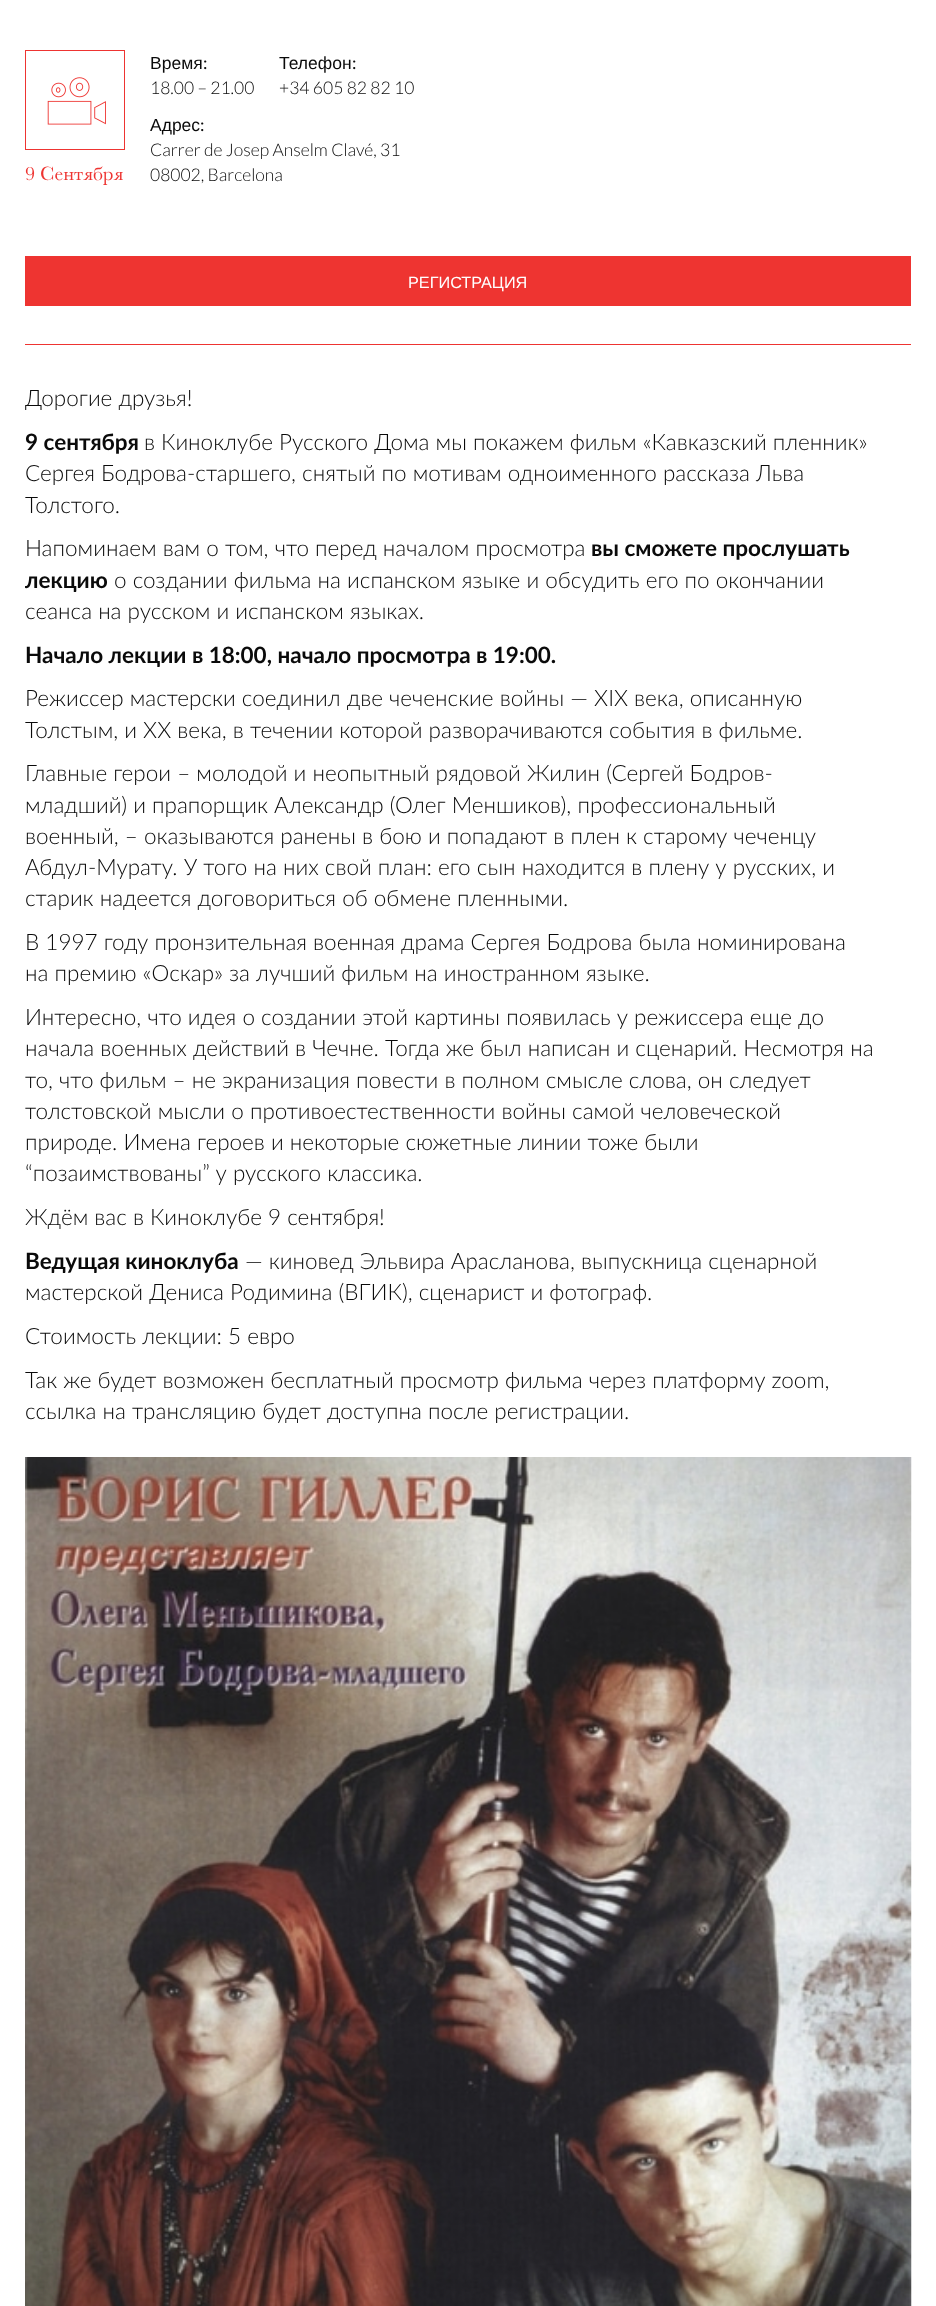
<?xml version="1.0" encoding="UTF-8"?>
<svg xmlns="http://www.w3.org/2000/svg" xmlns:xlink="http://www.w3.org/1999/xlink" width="936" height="2306">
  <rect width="100%" height="100%" fill="#ffffff" />
  <rect x="25" y="344" width="886" height="1" fill="#ee3431" />
  <image x="25" y="50" width="100" height="100" xlink:href="image1.png" />
  <rect x="25" y="256" width="886" height="50" fill="#ee3431" />
  <image x="25" y="1457" width="887" height="849" xlink:href="image2.png" />
  <text x="25" y="180" style="font-family: Baskerville; font-size: 20px; fill: #ee3431">9 Сентября</text>
  <text x="150" y="69" style="font-family: Liberation Sans; font-size: 17.5px; fill: #0a0a0a">Время</text>
  <text x="203" y="69" style="font-family: Lato; font-size: 17.5px; fill: #0a0a0a">:</text>
  <text x="150" y="94" style="font-family: Lato; font-size: 17.5px; font-weight: 300; fill: #0a0a0a">18.00 – 21.00</text>
  <text x="279" y="69" style="font-family: Liberation Sans; font-size: 17.5px; fill: #0a0a0a">Телефон</text>
  <text x="352" y="69" style="font-family: Lato; font-size: 17.5px; fill: #0a0a0a">:</text>
  <text x="279" y="94" style="font-family: Lato; font-size: 17.5px; font-weight: 300; fill: #0a0a0a">+34 605 82 82 10</text>
  <text x="150" y="131" style="font-family: Liberation Sans; font-size: 17.5px; fill: #0a0a0a">Адрес</text>
  <text x="200" y="131" style="font-family: Lato; font-size: 17.5px; fill: #0a0a0a">:</text>
  <text x="150" y="156" style="font-family: Lato; font-size: 17.5px; font-weight: 300; fill: #0a0a0a">Carrer de Josep Anselm Clavé, 31</text>
  <text x="150" y="181" style="font-family: Lato; font-size: 17.5px; font-weight: 300; fill: #0a0a0a">08002, Barcelona</text>
  <text x="408" y="288" style="font-family: Liberation Sans; font-size: 16.25px; fill: #ffffff">РЕГИСТРАЦИЯ</text>
  <text x="25" y="406" style="font-family: 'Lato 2'; font-size: 22.5px; font-weight: 300; fill: #0a0a0a">Дорогие друзья!</text>
  <text x="25" y="450" style="font-family: Lato; font-size: 22.5px; font-weight: bold; fill: #0a0a0a">9 сентября</text>
  <text x="144" y="450" style="font-family: 'Lato 2'; font-size: 22.5px; font-weight: 300; fill: #0a0a0a">в Киноклубе Русского Дома мы покажем фильм «Кавказский пленник»</text>
  <text x="25" y="481" style="font-family: 'Lato 2'; font-size: 22.5px; font-weight: 300; fill: #0a0a0a">Сергея Бодрова-старшего, снятый по мотивам одноименного рассказа Льва</text>
  <text x="25" y="513" style="font-family: 'Lato 2'; font-size: 22.5px; font-weight: 300; fill: #0a0a0a">Толстого.</text>
  <text x="25" y="556" style="font-family: 'Lato 2'; font-size: 22.5px; font-weight: 300; fill: #0a0a0a">Напоминаем вам о том, что перед началом просмотра</text>
  <text x="591" y="556" style="font-family: Lato; font-size: 22.5px; font-weight: bold; fill: #0a0a0a">вы сможете прослушать</text>
  <text x="25" y="588" style="font-family: Lato; font-size: 22.5px; font-weight: bold; fill: #0a0a0a">лекцию</text>
  <text x="114" y="588" style="font-family: 'Lato 2'; font-size: 22.5px; font-weight: 300; fill: #0a0a0a">о создании фильма на испанском языке и обсудить его по окончании</text>
  <text x="25" y="619" style="font-family: 'Lato 2'; font-size: 22.5px; font-weight: 300; fill: #0a0a0a">сеанса на русском и испанском языках.</text>
  <text x="25" y="663" style="font-family: Lato; font-size: 22.5px; font-weight: bold; fill: #0a0a0a">Начало лекции в 18:00, начало просмотра в 19:00.</text>
  <text x="25" y="706" style="font-family: 'Lato 2'; font-size: 22.5px; font-weight: 300; fill: #0a0a0a">Режиссер мастерски соединил две чеченские войны — XIX века, описанную</text>
  <text x="25" y="738" style="font-family: 'Lato 2'; font-size: 22.5px; font-weight: 300; fill: #0a0a0a">Толстым, и XX века, в течении которой разворачиваются события в фильме.</text>
  <text x="25" y="781" style="font-family: 'Lato 2'; font-size: 22.5px; font-weight: 300; fill: #0a0a0a">Главные герои – молодой и неопытный рядовой Жилин (Сергей Бодров-</text>
  <text x="25" y="813" style="font-family: 'Lato 2'; font-size: 22.5px; font-weight: 300; fill: #0a0a0a">младший) и прапорщик Александр (Олег Меншиков), профессиональный</text>
  <text x="25" y="844" style="font-family: 'Lato 2'; font-size: 22.5px; font-weight: 300; fill: #0a0a0a">военный, – оказываются ранены в бою и попадают в плен к старому чеченцу</text>
  <text x="25" y="875" style="font-family: 'Lato 2'; font-size: 22.5px; font-weight: 300; fill: #0a0a0a">Абдул-Мурату. У того на них свой план: его сын находится в плену у русских, и</text>
  <text x="25" y="906" style="font-family: 'Lato 2'; font-size: 22.5px; font-weight: 300; fill: #0a0a0a">старик надеется договориться об обмене пленными.</text>
  <text x="25" y="950" style="font-family: 'Lato 2'; font-size: 22.5px; font-weight: 300; fill: #0a0a0a">В 1997 году пронзительная военная драма Сергея Бодрова была номинирована</text>
  <text x="25" y="981" style="font-family: 'Lato 2'; font-size: 22.5px; font-weight: 300; fill: #0a0a0a">на премию «Оскар» за лучший фильм на иностранном языке.</text>
  <text x="25" y="1025" style="font-family: 'Lato 2'; font-size: 22.5px; font-weight: 300; fill: #0a0a0a">Интересно, что идея о создании этой картины появилась у режиссера еще до</text>
  <text x="25" y="1056" style="font-family: 'Lato 2'; font-size: 22.5px; font-weight: 300; fill: #0a0a0a">начала военных действий в Чечне. Тогда же был написан и сценарий. Несмотря на</text>
  <text x="25" y="1088" style="font-family: 'Lato 2'; font-size: 22.5px; font-weight: 300; fill: #0a0a0a">то, что фильм – не экранизация повести в полном смысле слова, он следует</text>
  <text x="25" y="1119" style="font-family: 'Lato 2'; font-size: 22.5px; font-weight: 300; fill: #0a0a0a">толстовской мысли о противоестественности войны самой человеческой</text>
  <text x="25" y="1150" style="font-family: 'Lato 2'; font-size: 22.5px; font-weight: 300; fill: #0a0a0a">природе. Имена героев и некоторые сюжетные линии тоже были</text>
  <text x="25" y="1181" style="font-family: 'Lato 2'; font-size: 22.5px; font-weight: 300; fill: #0a0a0a">“позаимствованы” у русского классика.</text>
  <text x="25" y="1225" style="font-family: 'Lato 2'; font-size: 22.5px; font-weight: 300; fill: #0a0a0a">Ждём вас в Киноклубе 9 сентября!</text>
  <text x="25" y="1269" style="font-family: Lato; font-size: 22.5px; font-weight: bold; fill: #0a0a0a">Ведущая киноклуба</text>
  <text x="245" y="1269" style="font-family: 'Lato 2'; font-size: 22.5px; font-weight: 300; fill: #0a0a0a">— киновед Эльвира Арасланова, выпускница сценарной</text>
  <text x="25" y="1300" style="font-family: 'Lato 2'; font-size: 22.5px; font-weight: 300; fill: #0a0a0a">мастерской Дениса Родимина (ВГИК), сценарист и фотограф.</text>
  <text x="25" y="1344" style="font-family: 'Lato 2'; font-size: 22.5px; font-weight: 300; fill: #0a0a0a">Стоимость лекции: 5 евро</text>
  <text x="25" y="1388" style="font-family: 'Lato 2'; font-size: 22.5px; font-weight: 300; fill: #0a0a0a">Так же будет возможен бесплатный просмотр фильма через платформу zoom,</text>
  <text x="25" y="1419" style="font-family: 'Lato 2'; font-size: 22.5px; font-weight: 300; fill: #0a0a0a">ссылка на трансляцию будет доступна после регистрации.</text>
</svg>
